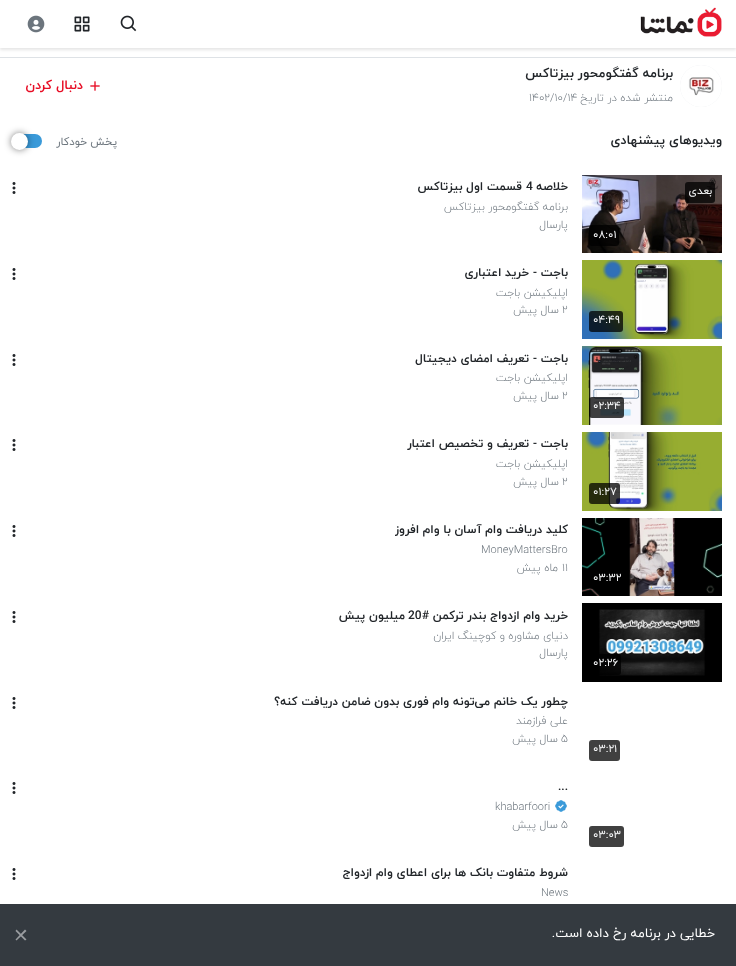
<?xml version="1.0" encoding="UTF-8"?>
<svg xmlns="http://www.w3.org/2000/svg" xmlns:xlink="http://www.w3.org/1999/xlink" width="736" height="966">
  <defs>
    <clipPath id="clip1"><rect x="395" y="521" width="173" height="18" /></clipPath>
  </defs>
  <rect width="100%" height="100%" fill="#ffffff" />
  <rect y="2" width="736" height="48" fill="#000000" fill-opacity="0.1" filter="blur(1.5px)" />
  <rect width="736" height="48" fill="#ffffff" />
  <image x="640" y="7" width="82" height="30" xlink:href="image1.png" />
  <image x="120" y="15" width="17" height="17" xlink:href="image2.png" />
  <image x="74" y="16" width="16" height="16" xlink:href="image3.png" />
  <image x="27" y="15" width="18" height="18" xlink:href="image4.png" />
  <rect y="57" width="736" height="1" fill="#dee2e6" />
  <circle cx="701" cy="86" r="21" fill="#e9ecef" />
  <image x="680" y="65" width="42" height="42" xlink:href="image5.png" />
  <image x="90" y="81" width="10" height="10" xlink:href="image6.png" />
  <rect x="14" y="134" width="28" height="14" rx="7" fill="#3a9ad9" />
  <rect x="11" y="133" width="17" height="17" rx="8.5" fill="#000000" fill-opacity="0.5" filter="blur(3.5px)" />
  <circle cx="19.5" cy="141.5" r="8.5" fill="#ffffff" />
  <image x="582" y="175" width="140" height="78" xlink:href="image7.png" />
  <rect x="685" y="182" width="30" height="21" rx="3" fill="#000000" fill-opacity="0.75" />
  <rect x="589" y="225" width="30" height="21" rx="3" fill="#000000" fill-opacity="0.75" />
  <image x="12" y="182" width="4" height="12" xlink:href="image8.png" />
  <image x="12" y="268" width="4" height="12" xlink:href="image8.png" />
  <image x="582" y="260" width="140" height="79" xlink:href="image9.png" />
  <rect x="589" y="311" width="34" height="21" rx="3" fill="#000000" fill-opacity="0.75" />
  <image x="12" y="354" width="4" height="12" xlink:href="image8.png" />
  <image x="582" y="346" width="140" height="79" xlink:href="image10.png" />
  <rect x="589" y="397" width="35" height="21" rx="3" fill="#000000" fill-opacity="0.75" />
  <image x="12" y="439" width="4" height="12" xlink:href="image8.png" />
  <image x="582" y="432" width="140" height="79" xlink:href="image11.png" />
  <rect x="589" y="483" width="31" height="21" rx="3" fill="#000000" fill-opacity="0.75" />
  <image x="12" y="525" width="4" height="12" xlink:href="image8.png" />
  <image x="582" y="518" width="140" height="78" xlink:href="image12.png" />
  <rect x="589" y="568" width="35" height="21" rx="3" fill="#000000" fill-opacity="0.75" />
  <image x="12" y="611" width="4" height="12" xlink:href="image8.png" />
  <image x="582" y="603" width="140" height="79" xlink:href="image13.png" />
  <rect x="589" y="654" width="32" height="21" rx="3" fill="#000000" fill-opacity="0.75" />
  <image x="12" y="697" width="4" height="12" xlink:href="image8.png" />
  <rect x="589" y="740" width="31" height="21" rx="3" fill="#404040" />
  <image x="12" y="782" width="4" height="12" xlink:href="image8.png" />
  <image x="555" y="800" width="12" height="12" xlink:href="image14.png" />
  <rect x="589" y="826" width="35" height="21" rx="3" fill="#404040" />
  <image x="12" y="868" width="4" height="12" xlink:href="image8.png" />
  <rect y="904" width="736" height="62" fill="#343a40" />
  <path d="M 25 929.5 l 1.5 1.5 l -10 9.5 l -1 -1 z" fill="#9a9da0" />
  <path d="M 15.5 931 l 1 -1.5 l 10 10 l -1.5 1 z" fill="#9a9da0" />
  <text x="673" y="77" style="font-family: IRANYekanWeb; font-size: 13px; font-weight: bold; direction: rtl; fill: #212529">برنامه گفتگومحور بیزتاکس</text>
  <text x="673" y="101" style="font-family: IRANYekanWeb; font-size: 11px; font-weight: 300; direction: rtl; fill: #6c757d">منتشر شده در تاریخ</text>
  <text x="529" y="101" style="font-family: IRANYekanWeb; font-size: 11px; font-weight: 300; fill: #6c757d">۱۴۰۲/۱۰/۱۴</text>
  <text x="83" y="89" style="font-family: IRANYekanWeb; font-size: 13px; font-weight: bold; direction: rtl; fill: #e70c24">دنبال کردن</text>
  <text x="722" y="144" style="font-family: IRANYekanWeb; font-size: 13px; font-weight: bold; direction: rtl; fill: #212529">ویدیوهای پیشنهادی</text>
  <text x="117" y="145" style="font-family: IRANYekanWeb; font-size: 11px; direction: rtl; fill: #6c757d">پخش خودکار</text>
  <text x="712" y="194" style="font-family: IRANYekanWeb; font-size: 11px; direction: rtl; fill: #f8f9fa">بعدی</text>
  <text x="593" y="238" style="font-family: IRANYekanWeb; font-size: 11px; fill: #f8f9fa">۰۸:۰۱</text>
  <text x="568" y="190" style="font-family: IRANYekanWeb; font-size: 12px; font-weight: bold; direction: rtl; fill: #212529">خلاصه</text>
  <text x="526" y="190" style="font-family: IRANYekanWeb; font-size: 12px; font-weight: bold; fill: #212529">4</text>
  <text x="522" y="190" style="font-family: IRANYekanWeb; font-size: 12px; font-weight: bold; direction: rtl; fill: #212529">قسمت اول بیزتاکس</text>
  <text x="568" y="210" style="font-family: IRANYekanWeb; font-size: 11px; font-weight: 300; direction: rtl; fill: #6c757d">برنامه گفتگومحور بیزتاکس</text>
  <text x="568" y="228" style="font-family: IRANYekanWeb; font-size: 11px; font-weight: 300; direction: rtl; fill: #6c757d">پارسال</text>
  <text x="568" y="276" style="font-family: IRANYekanWeb; font-size: 12px; font-weight: bold; direction: rtl; fill: #212529">باجت - خرید اعتباری</text>
  <text x="568" y="296" style="font-family: IRANYekanWeb; font-size: 11px; font-weight: 300; direction: rtl; fill: #6c757d">اپلیکیشن باجت</text>
  <text x="562" y="313" style="font-family: IRANYekanWeb; font-size: 11px; font-weight: 300; fill: #6c757d">۲</text>
  <text x="559" y="313" style="font-family: IRANYekanWeb; font-size: 11px; font-weight: 300; direction: rtl; fill: #6c757d">سال پیش</text>
  <text x="593" y="323" style="font-family: IRANYekanWeb; font-size: 11px; fill: #f8f9fa">۰۴:۴۹</text>
  <text x="568" y="362" style="font-family: IRANYekanWeb; font-size: 12px; font-weight: bold; direction: rtl; fill: #212529">باجت - تعریف امضای دیجیتال</text>
  <text x="568" y="381" style="font-family: IRANYekanWeb; font-size: 11px; font-weight: 300; direction: rtl; fill: #6c757d">اپلیکیشن باجت</text>
  <text x="562" y="399" style="font-family: IRANYekanWeb; font-size: 11px; font-weight: 300; fill: #6c757d">۲</text>
  <text x="559" y="399" style="font-family: IRANYekanWeb; font-size: 11px; font-weight: 300; direction: rtl; fill: #6c757d">سال پیش</text>
  <text x="593" y="409" style="font-family: IRANYekanWeb; font-size: 11px; fill: #f8f9fa">۰۲:۳۴</text>
  <text x="568" y="447" style="font-family: IRANYekanWeb; font-size: 12px; font-weight: bold; direction: rtl; fill: #212529">باجت - تعریف و تخصیص اعتبار</text>
  <text x="568" y="467" style="font-family: IRANYekanWeb; font-size: 11px; font-weight: 300; direction: rtl; fill: #6c757d">اپلیکیشن باجت</text>
  <text x="562" y="485" style="font-family: IRANYekanWeb; font-size: 11px; font-weight: 300; fill: #6c757d">۲</text>
  <text x="559" y="485" style="font-family: IRANYekanWeb; font-size: 11px; font-weight: 300; direction: rtl; fill: #6c757d">سال پیش</text>
  <text x="593" y="495" style="font-family: IRANYekanWeb; font-size: 11px; fill: #f8f9fa">۰۱:۲۷</text>
  <g clip-path="url(#clip1)">
    <text x="568" y="533" style="font-family: IRANYekanWeb; font-size: 12px; font-weight: bold; direction: rtl; fill: #212529">کلید دریافت وام آسان با وام افروز</text>
  </g>
  <text x="481" y="553" style="font-family: IRANYekanWeb; font-size: 11px; font-weight: 300; fill: #6c757d">MoneyMattersBro</text>
  <text x="562" y="571" style="font-family: IRANYekanWeb; font-size: 11px; font-weight: 300; fill: #6c757d">۱۱</text>
  <text x="558" y="571" style="font-family: IRANYekanWeb; font-size: 11px; font-weight: 300; direction: rtl; fill: #6c757d">ماه پیش</text>
  <text x="593" y="581" style="font-family: IRANYekanWeb; font-size: 11px; fill: #f8f9fa">۰۳:۳۲</text>
  <text x="568" y="619" style="font-family: IRANYekanWeb; font-size: 12px; font-weight: bold; direction: rtl; fill: #212529">خرید وام ازدواج بندر ترکمن #</text>
  <text x="408" y="619" style="font-family: IRANYekanWeb; font-size: 12px; font-weight: bold; fill: #212529">20</text>
  <text x="405" y="619" style="font-family: IRANYekanWeb; font-size: 12px; font-weight: bold; direction: rtl; fill: #212529">میلیون پیش</text>
  <text x="568" y="639" style="font-family: IRANYekanWeb; font-size: 11px; font-weight: 300; direction: rtl; fill: #6c757d">دنیای مشاوره و کوچینگ ایران</text>
  <text x="568" y="656" style="font-family: IRANYekanWeb; font-size: 11px; font-weight: 300; direction: rtl; fill: #6c757d">پارسال</text>
  <text x="593" y="666" style="font-family: IRANYekanWeb; font-size: 11px; fill: #f8f9fa">۰۲:۲۶</text>
  <text x="568" y="705" style="font-family: IRANYekanWeb; font-size: 12px; font-weight: bold; direction: rtl; fill: #212529">چطور یک خانم می‌تونه وام فوری بدون ضامن دریافت کنه؟</text>
  <text x="568" y="724" style="font-family: IRANYekanWeb; font-size: 11px; font-weight: 300; direction: rtl; fill: #6c757d">علی فرازمند</text>
  <text x="561" y="742" style="font-family: IRANYekanWeb; font-size: 11px; font-weight: 300; fill: #6c757d">۵</text>
  <text x="558" y="742" style="font-family: IRANYekanWeb; font-size: 11px; font-weight: 300; direction: rtl; fill: #6c757d">سال پیش</text>
  <text x="593" y="752" style="font-family: IRANYekanWeb; font-size: 11px; fill: #f8f9fa">۰۳:۲۱</text>
  <text x="558" y="790" style="font-family: IRANYekanWeb; font-size: 12px; font-weight: bold; fill: #212529">...</text>
  <text x="495" y="810" style="font-family: IRANYekanWeb; font-size: 11px; font-weight: 300; fill: #6c757d">khabarfoori</text>
  <text x="561" y="828" style="font-family: IRANYekanWeb; font-size: 11px; font-weight: 300; fill: #6c757d">۵</text>
  <text x="558" y="828" style="font-family: IRANYekanWeb; font-size: 11px; font-weight: 300; direction: rtl; fill: #6c757d">سال پیش</text>
  <text x="593" y="838" style="font-family: IRANYekanWeb; font-size: 11px; fill: #f8f9fa">۰۳:۰۳</text>
  <text x="568" y="876" style="font-family: IRANYekanWeb; font-size: 12px; font-weight: bold; direction: rtl; fill: #212529">شروط متفاوت بانک ها برای اعطای وام ازدواج</text>
  <text x="541" y="896" style="font-family: IRANYekanWeb; font-size: 11px; font-weight: 300; fill: #6c757d">News</text>
  <text x="715" y="937" style="font-family: IRANYekanWeb; font-size: 13px; direction: rtl; fill: #ffffff">خطایی در برنامه رخ داده است.</text>
</svg>
